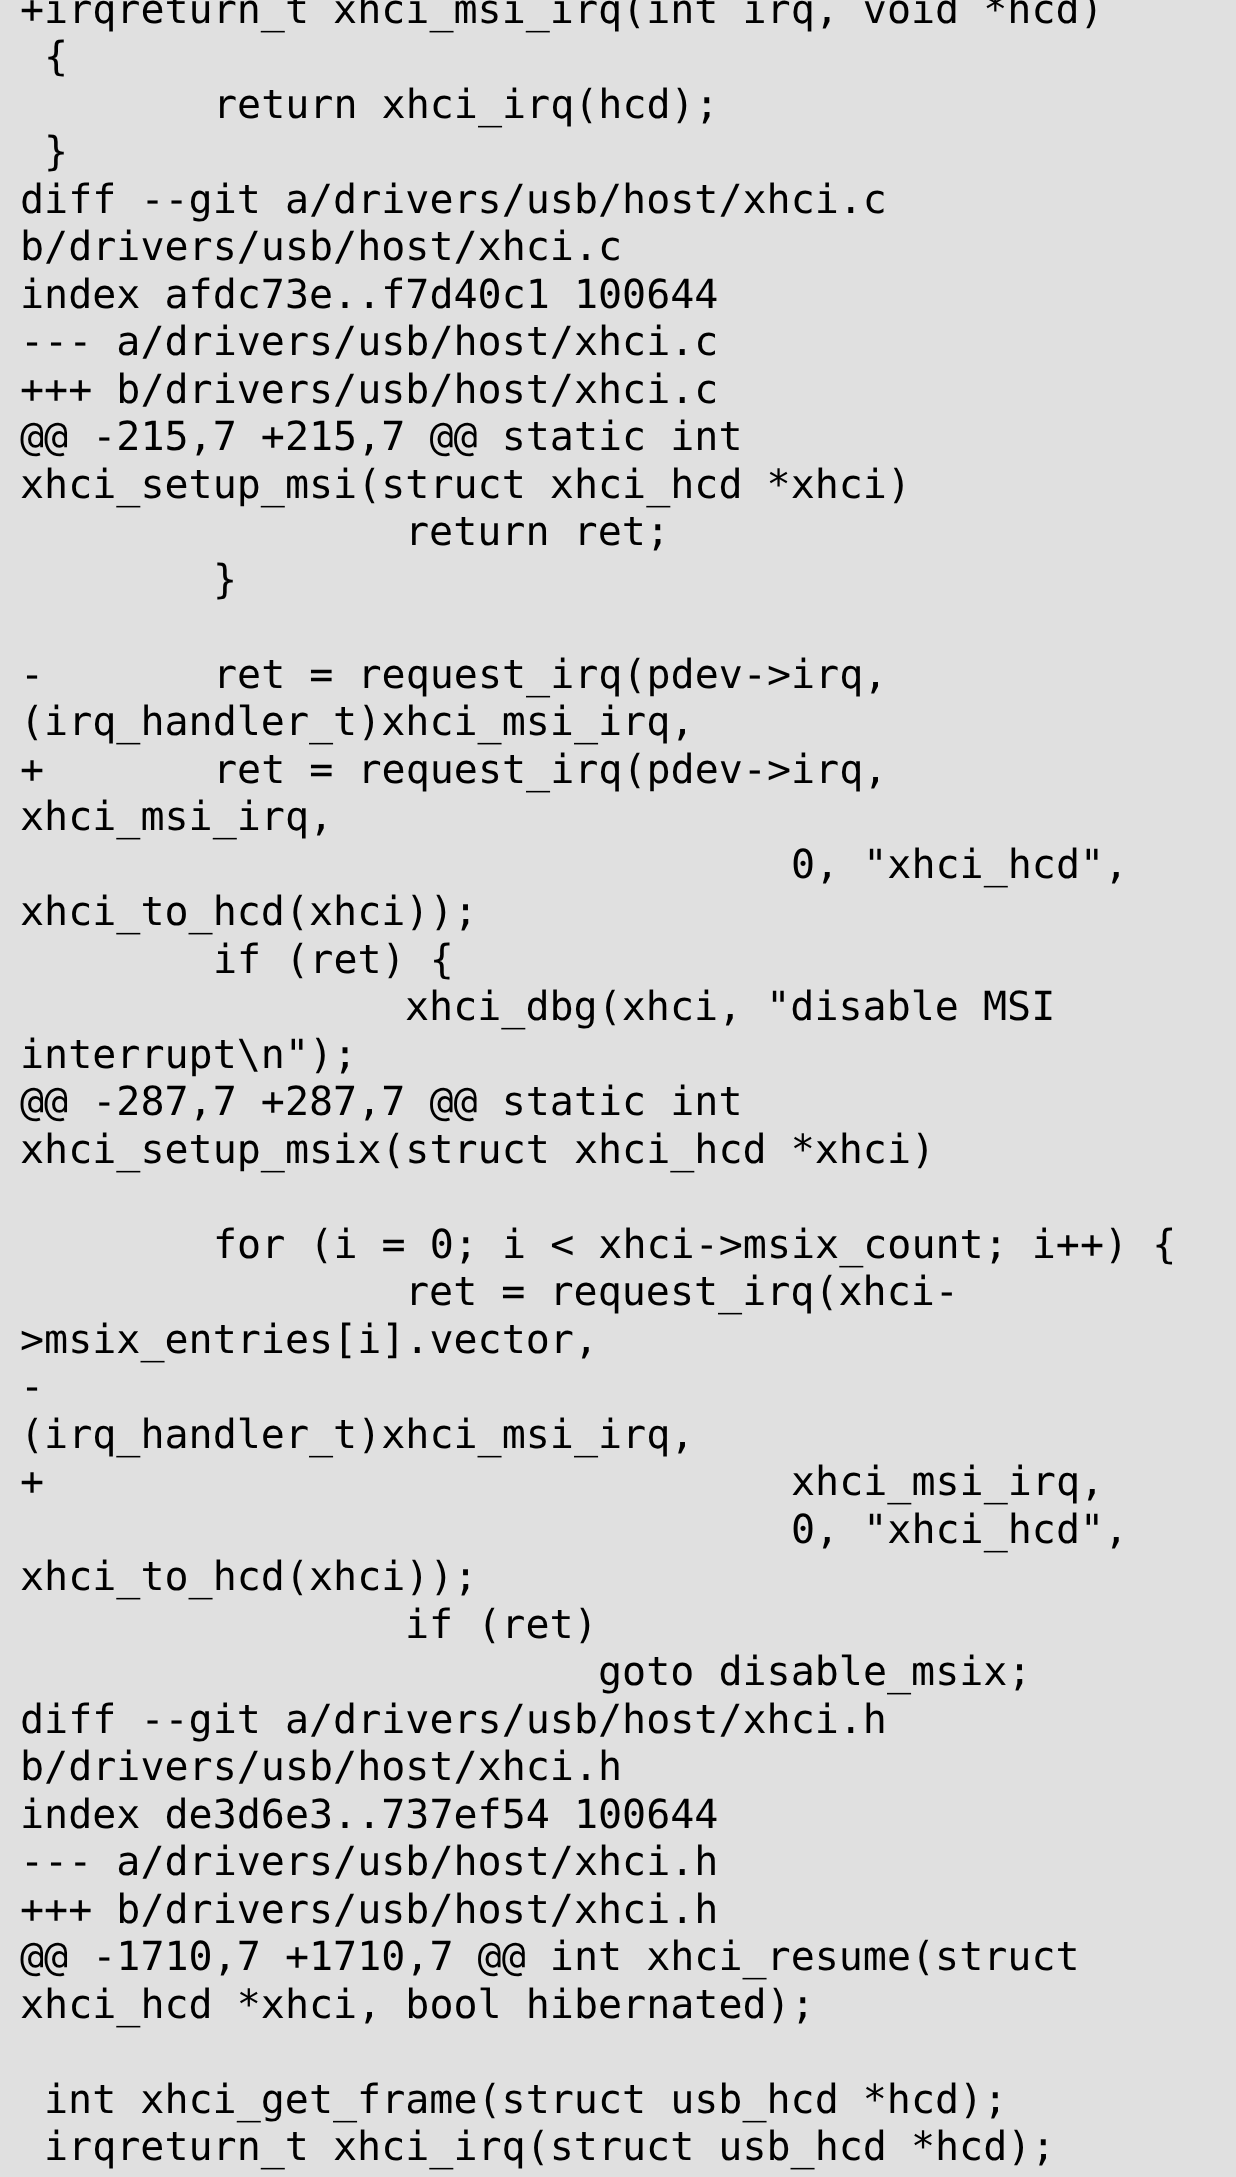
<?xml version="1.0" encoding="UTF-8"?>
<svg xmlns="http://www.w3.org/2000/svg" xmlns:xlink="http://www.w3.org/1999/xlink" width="1236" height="2177">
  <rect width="100%" height="100%" fill="#e0e0e0" />
  <text x="20" y="23" style="font-family: DejaVu Sans Mono; font-size: 40px; fill: #000000">+irqreturn_t xhci_msi_irq(int irq, void *hcd)</text>
  <text x="44" y="70" style="font-family: DejaVu Sans Mono; font-size: 40px; fill: #000000">{</text>
  <text x="213" y="118" style="font-family: DejaVu Sans Mono; font-size: 40px; fill: #000000">return xhci_irq(hcd);</text>
  <text x="44" y="165" style="font-family: DejaVu Sans Mono; font-size: 40px; fill: #000000">}</text>
  <text x="20" y="213" style="font-family: DejaVu Sans Mono; font-size: 40px; fill: #000000">diff --git a/drivers/usb/host/xhci.c</text>
  <text x="20" y="260" style="font-family: DejaVu Sans Mono; font-size: 40px; fill: #000000">b/drivers/usb/host/xhci.c</text>
  <text x="20" y="308" style="font-family: DejaVu Sans Mono; font-size: 40px; fill: #000000">index afdc73e..f7d40c1 100644</text>
  <text x="20" y="355" style="font-family: DejaVu Sans Mono; font-size: 40px; fill: #000000">--- a/drivers/usb/host/xhci.c</text>
  <text x="20" y="403" style="font-family: DejaVu Sans Mono; font-size: 40px; fill: #000000">+++ b/drivers/usb/host/xhci.c</text>
  <text x="20" y="450" style="font-family: DejaVu Sans Mono; font-size: 40px; fill: #000000">@@ -215,7 +215,7 @@ static int</text>
  <text x="20" y="498" style="font-family: DejaVu Sans Mono; font-size: 40px; fill: #000000">xhci_setup_msi(struct xhci_hcd *xhci)</text>
  <text x="405" y="545" style="font-family: DejaVu Sans Mono; font-size: 40px; fill: #000000">return ret;</text>
  <text x="213" y="593" style="font-family: DejaVu Sans Mono; font-size: 40px; fill: #000000">}</text>
  <text x="20" y="688" style="font-family: DejaVu Sans Mono; font-size: 40px; fill: #000000">-</text>
  <text x="213" y="688" style="font-family: DejaVu Sans Mono; font-size: 40px; fill: #000000">ret = request_irq(pdev-&gt;irq,</text>
  <text x="20" y="735" style="font-family: DejaVu Sans Mono; font-size: 40px; fill: #000000">(irq_handler_t)xhci_msi_irq,</text>
  <text x="20" y="783" style="font-family: DejaVu Sans Mono; font-size: 40px; fill: #000000">+</text>
  <text x="213" y="783" style="font-family: DejaVu Sans Mono; font-size: 40px; fill: #000000">ret = request_irq(pdev-&gt;irq,</text>
  <text x="20" y="830" style="font-family: DejaVu Sans Mono; font-size: 40px; fill: #000000">xhci_msi_irq,</text>
  <text x="791" y="878" style="font-family: DejaVu Sans Mono; font-size: 40px; fill: #000000">0, "xhci_hcd",</text>
  <text x="20" y="925" style="font-family: DejaVu Sans Mono; font-size: 40px; fill: #000000">xhci_to_hcd(xhci));</text>
  <text x="213" y="973" style="font-family: DejaVu Sans Mono; font-size: 40px; fill: #000000">if (ret) {</text>
  <text x="405" y="1020" style="font-family: DejaVu Sans Mono; font-size: 40px; fill: #000000">xhci_dbg(xhci, "disable MSI</text>
  <text x="20" y="1068" style="font-family: DejaVu Sans Mono; font-size: 40px; fill: #000000">interrupt\n");</text>
  <text x="20" y="1115" style="font-family: DejaVu Sans Mono; font-size: 40px; fill: #000000">@@ -287,7 +287,7 @@ static int</text>
  <text x="20" y="1163" style="font-family: DejaVu Sans Mono; font-size: 40px; fill: #000000">xhci_setup_msix(struct xhci_hcd *xhci)</text>
  <text x="213" y="1258" style="font-family: DejaVu Sans Mono; font-size: 40px; fill: #000000">for (i = 0; i &lt; xhci-&gt;msix_count; i++) {</text>
  <text x="405" y="1305" style="font-family: DejaVu Sans Mono; font-size: 40px; fill: #000000">ret = request_irq(xhci-</text>
  <text x="20" y="1353" style="font-family: DejaVu Sans Mono; font-size: 40px; fill: #000000">&gt;msix_entries[i].vector,</text>
  <text x="20" y="1400" style="font-family: DejaVu Sans Mono; font-size: 40px; fill: #000000">-</text>
  <text x="20" y="1448" style="font-family: DejaVu Sans Mono; font-size: 40px; fill: #000000">(irq_handler_t)xhci_msi_irq,</text>
  <text x="20" y="1495" style="font-family: DejaVu Sans Mono; font-size: 40px; fill: #000000">+</text>
  <text x="791" y="1495" style="font-family: DejaVu Sans Mono; font-size: 40px; fill: #000000">xhci_msi_irq,</text>
  <text x="791" y="1543" style="font-family: DejaVu Sans Mono; font-size: 40px; fill: #000000">0, "xhci_hcd",</text>
  <text x="20" y="1590" style="font-family: DejaVu Sans Mono; font-size: 40px; fill: #000000">xhci_to_hcd(xhci));</text>
  <text x="405" y="1638" style="font-family: DejaVu Sans Mono; font-size: 40px; fill: #000000">if (ret)</text>
  <text x="598" y="1685" style="font-family: DejaVu Sans Mono; font-size: 40px; fill: #000000">goto disable_msix;</text>
  <text x="20" y="1733" style="font-family: DejaVu Sans Mono; font-size: 40px; fill: #000000">diff --git a/drivers/usb/host/xhci.h</text>
  <text x="20" y="1780" style="font-family: DejaVu Sans Mono; font-size: 40px; fill: #000000">b/drivers/usb/host/xhci.h</text>
  <text x="20" y="1828" style="font-family: DejaVu Sans Mono; font-size: 40px; fill: #000000">index de3d6e3..737ef54 100644</text>
  <text x="20" y="1875" style="font-family: DejaVu Sans Mono; font-size: 40px; fill: #000000">--- a/drivers/usb/host/xhci.h</text>
  <text x="20" y="1923" style="font-family: DejaVu Sans Mono; font-size: 40px; fill: #000000">+++ b/drivers/usb/host/xhci.h</text>
  <text x="20" y="1970" style="font-family: DejaVu Sans Mono; font-size: 40px; fill: #000000">@@ -1710,7 +1710,7 @@ int xhci_resume(struct</text>
  <text x="20" y="2018" style="font-family: DejaVu Sans Mono; font-size: 40px; fill: #000000">xhci_hcd *xhci, bool hibernated);</text>
  <text x="44" y="2113" style="font-family: DejaVu Sans Mono; font-size: 40px; fill: #000000">int xhci_get_frame(struct usb_hcd *hcd);</text>
  <text x="44" y="2160" style="font-family: DejaVu Sans Mono; font-size: 40px; fill: #000000">irqreturn_t xhci_irq(struct usb_hcd *hcd);</text>
</svg>
